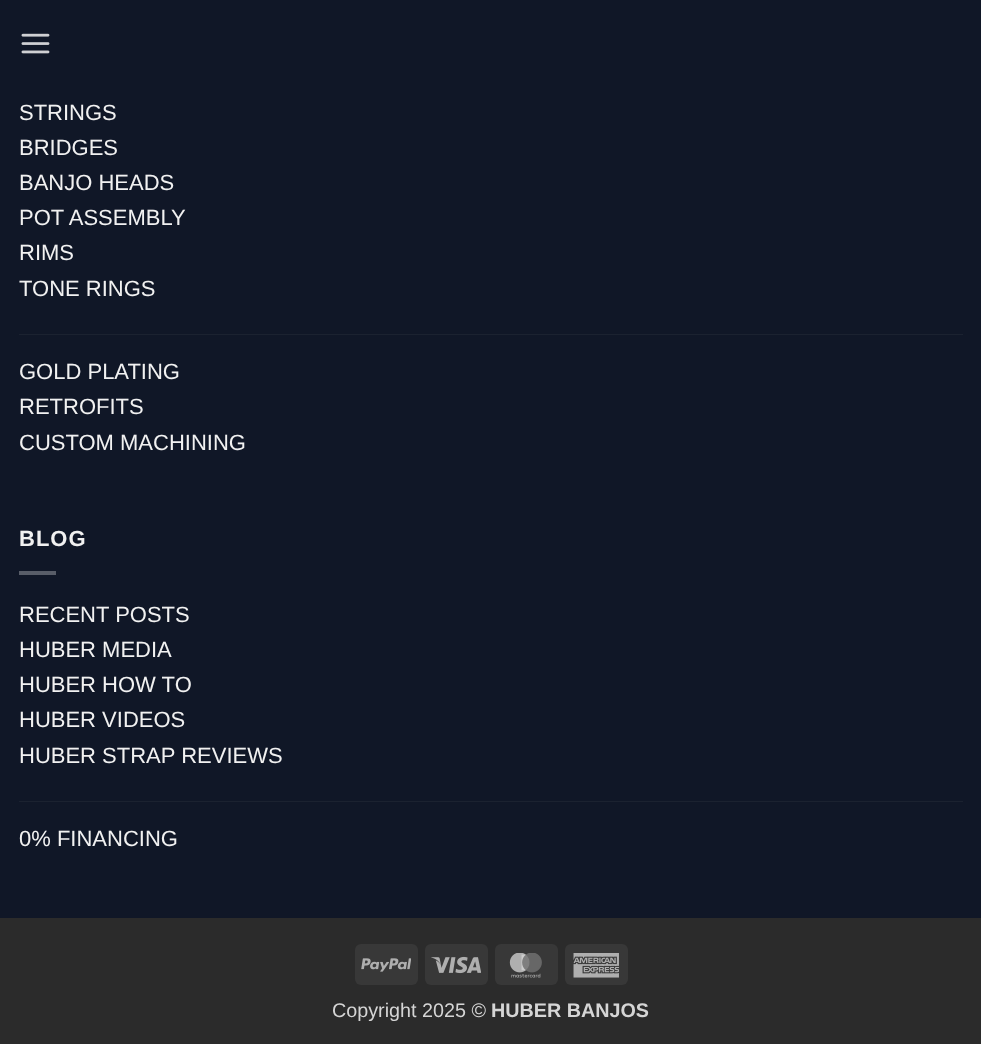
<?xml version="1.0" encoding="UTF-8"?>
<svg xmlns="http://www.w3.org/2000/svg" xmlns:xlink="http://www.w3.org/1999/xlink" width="981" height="1044">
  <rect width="100%" height="100%" fill="#101727" />
  <image x="21" y="33" width="29" height="21" xlink:href="image1.png" />
  <rect x="19" y="334" width="944" height="1" fill="#1b2230" />
  <rect x="19" y="571" width="37" height="4" fill="#585d68" />
  <rect x="19" y="801" width="944" height="1" fill="#1b2230" />
  <rect y="918" width="981" height="126" fill="#2b2b2b" />
  <rect x="355" y="944" width="63" height="41" rx="6" fill="#383838" />
  <image x="361" y="958" width="50" height="14" xlink:href="image2.png" />
  <rect x="425" y="944" width="63" height="41" rx="6" fill="#383838" />
  <image x="431" y="956" width="50" height="18" xlink:href="image3.png" />
  <rect x="495" y="944" width="63" height="41" rx="6" fill="#383838" />
  <image x="509" y="953" width="33" height="25" xlink:href="image4.png" />
  <rect x="565" y="944" width="63" height="41" rx="6" fill="#383838" />
  <image x="573" y="953" width="46" height="25" xlink:href="image5.png" />
  <text x="19" y="120" style="font-family: Liberation Sans; font-size: 22px; fill: #f1f1f1">STRINGS</text>
  <text x="19" y="155" style="font-family: Liberation Sans; font-size: 22px; fill: #f1f1f1">BRIDGES</text>
  <text x="19" y="190" style="font-family: Liberation Sans; font-size: 22px; fill: #f1f1f1">BANJO HEADS</text>
  <text x="19" y="225" style="font-family: Liberation Sans; font-size: 22px; fill: #f1f1f1">POT ASSEMBLY</text>
  <text x="19" y="260" style="font-family: Liberation Sans; font-size: 22px; fill: #f1f1f1">RIMS</text>
  <text x="19" y="296" style="font-family: Liberation Sans; font-size: 22px; fill: #f1f1f1">TONE RINGS</text>
  <text x="19" y="379" style="font-family: Liberation Sans; font-size: 22px; fill: #f1f1f1">GOLD PLATING</text>
  <text x="19" y="414" style="font-family: Liberation Sans; font-size: 22px; fill: #f1f1f1">RETROFITS</text>
  <text x="19" y="450" style="font-family: Liberation Sans; font-size: 22px; fill: #f1f1f1">CUSTOM MACHINING</text>
  <text x="19" y="546" style="font-family: Liberation Sans; font-size: 22px; font-weight: bold; letter-spacing: 1px; fill: #f1f1f1">BLOG</text>
  <text x="19" y="622" style="font-family: Liberation Sans; font-size: 22px; fill: #f1f1f1">RECENT POSTS</text>
  <text x="19" y="657" style="font-family: Liberation Sans; font-size: 22px; fill: #f1f1f1">HUBER MEDIA</text>
  <text x="19" y="692" style="font-family: Liberation Sans; font-size: 22px; fill: #f1f1f1">HUBER HOW TO</text>
  <text x="19" y="727" style="font-family: Liberation Sans; font-size: 22px; fill: #f1f1f1">HUBER VIDEOS</text>
  <text x="19" y="763" style="font-family: Liberation Sans; font-size: 22px; fill: #f1f1f1">HUBER STRAP REVIEWS</text>
  <text x="19" y="846" style="font-family: Liberation Sans; font-size: 22px; fill: #f1f1f1">0% FINANCING</text>
  <text x="332" y="1017" style="font-family: Liberation Sans; font-size: 19.75px; fill: #d5d5d5">Copyright 2025 ©</text>
  <text x="491" y="1017" style="font-family: Liberation Sans; font-size: 19.75px; font-weight: bold; fill: #d5d5d5">HUBER BANJOS</text>
</svg>
